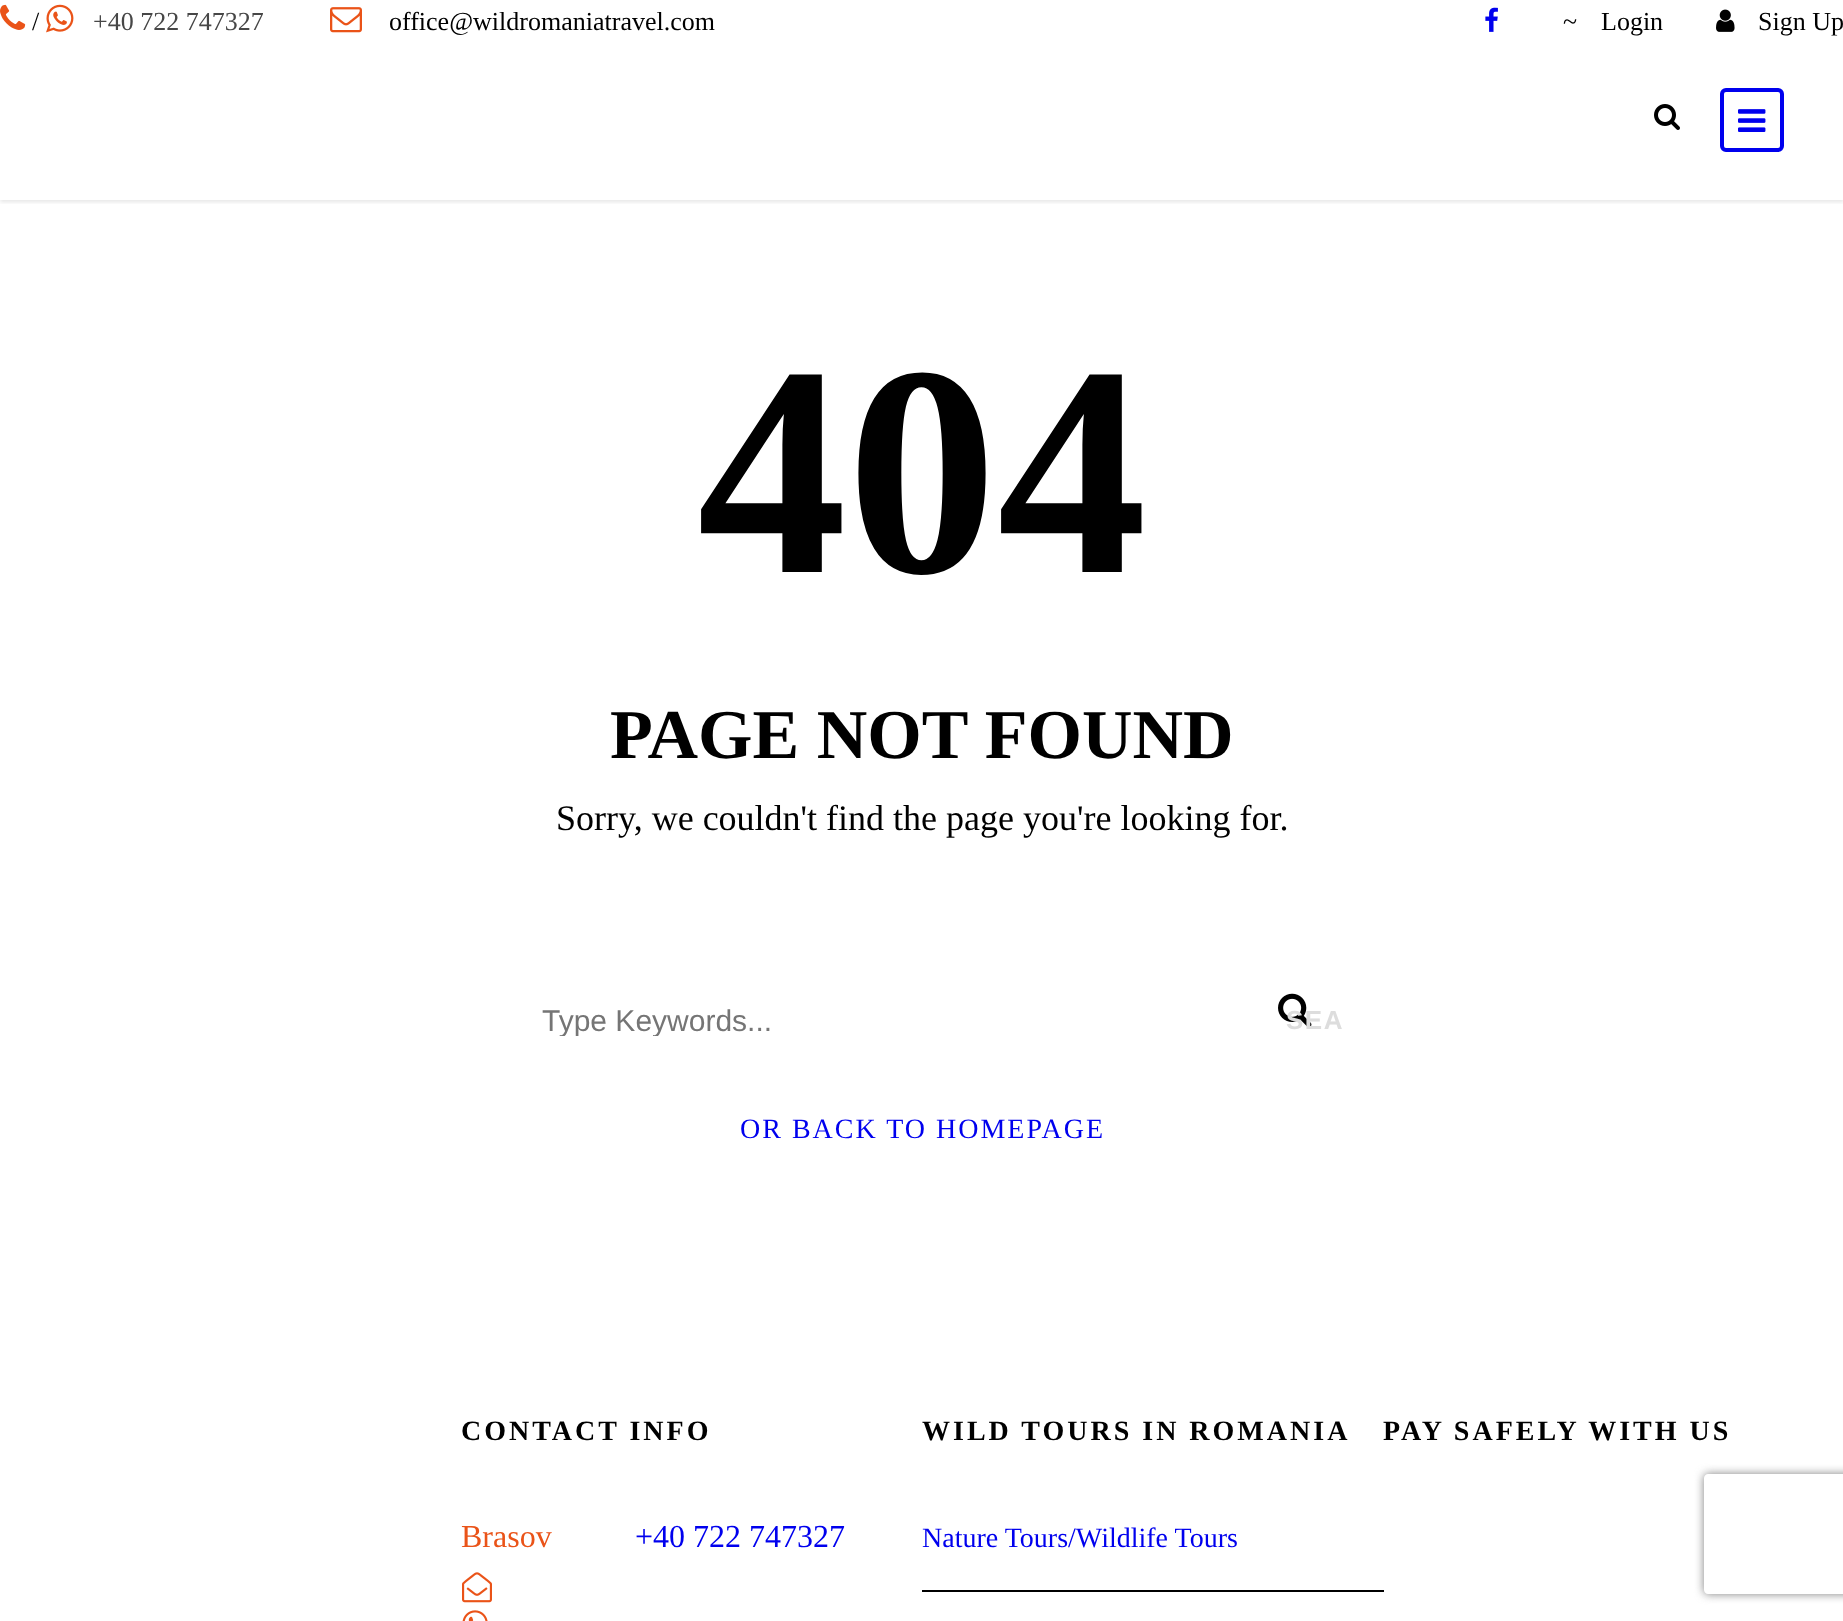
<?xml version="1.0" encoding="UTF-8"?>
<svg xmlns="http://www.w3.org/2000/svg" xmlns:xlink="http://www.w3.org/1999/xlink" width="1843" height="1621">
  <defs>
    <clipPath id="clip1"><rect x="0" y="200" width="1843" height="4" /></clipPath>
    <clipPath id="clip2"><path d="M 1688 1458 h 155 v 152 h -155 z m 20 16 h 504 c 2 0 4 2 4 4 v 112 c 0 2 -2 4 -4 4 h -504 c -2 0 -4 -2 -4 -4 v -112 c 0 -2 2 -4 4 -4 z" clip-rule="evenodd" /></clipPath>
    <clipPath id="clip3"><rect x="542" y="1002" width="690" height="34" /></clipPath>
  </defs>
  <rect width="100%" height="100%" fill="#ffffff" />
  <image x="0" y="4" width="26" height="26" xlink:href="image1.png" />
  <image x="46" y="4" width="28" height="29" xlink:href="image2.png" />
  <image x="330" y="7" width="32" height="26" xlink:href="image3.png" />
  <image x="1485" y="7" width="13" height="25" xlink:href="image4.png" />
  <image x="1716" y="9" width="19" height="23" xlink:href="image5.png" />
  <g clip-path="url(#clip1)">
    <rect y="48" width="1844" height="154" fill="#000000" fill-opacity="0.1" filter="blur(2px)" />
  </g>
  <image x="1654" y="104" width="26" height="26" xlink:href="image6.png" />
  <rect x="1722" y="90" width="60" height="60" rx="4" fill="none" stroke="#0000ee" stroke-width="4" />
  <image x="1738" y="109" width="28" height="23" xlink:href="image7.png" />
  <image x="1278" y="993" width="34" height="35" xlink:href="image8.png" />
  <image x="462" y="1572" width="30" height="31" xlink:href="image9.png" />
  <image x="462" y="1610" width="26" height="11" xlink:href="image10.png" />
  <rect x="922" y="1590" width="462" height="2" fill="#000000" />
  <g clip-path="url(#clip2)">
    <rect x="1704" y="1474" width="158" height="120" rx="4" fill="#808080" filter="blur(5px)" />
  </g>
  <text x="32" y="30" style="font-family: Liberation Serif; font-size: 26px; fill: #000000">/</text>
  <text x="93" y="30" style="font-family: Liberation Serif; font-size: 26px; fill: #474747">+40 722 747327</text>
  <text x="389" y="30" style="font-family: Liberation Serif; font-size: 26px; fill: #000000">office@wildromaniatravel.com</text>
  <text x="1563" y="30" style="font-family: Liberation Serif; font-size: 26px; fill: #000000">~</text>
  <text x="1601" y="30" style="font-family: Liberation Serif; font-size: 26px; fill: #000000">Login</text>
  <text x="1758" y="30" style="font-family: Liberation Serif; font-size: 26px; fill: #000000">Sign Up</text>
  <text x="697" y="572" style="font-family: Liberation Serif; font-size: 300px; font-weight: bold; fill: #000000">404</text>
  <text x="610" y="758" style="font-family: Liberation Serif; font-size: 70px; font-weight: bold; fill: #000000">PAGE NOT FOUND</text>
  <text x="556" y="830" style="font-family: Liberation Serif; font-size: 36px; fill: #000000">Sorry, we couldn't find the page you're looking for.</text>
  <g clip-path="url(#clip3)">
    <text x="542" y="1031" style="font-family: Liberation Sans; font-size: 30px; fill: #757575">Type Keywords...</text>
  </g>
  <text x="1286" y="1029" style="font-family: Liberation Sans; font-size: 26px; font-weight: bold; letter-spacing: 1.5px; fill: #dddddd">SEA</text>
  <text x="740" y="1138" style="font-family: Liberation Serif; font-size: 28px; letter-spacing: 2px; fill: #0000ee">OR BACK TO HOMEPAGE</text>
  <text x="461" y="1440" style="font-family: Liberation Serif; font-size: 28px; font-weight: bold; letter-spacing: 3px; fill: #000000">CONTACT INFO</text>
  <text x="461" y="1547" style="font-family: Liberation Serif; font-size: 32px; fill: #ea5318">Brasov</text>
  <text x="635" y="1547" style="font-family: Liberation Serif; font-size: 32px; fill: #0000ee">+40 722 747327</text>
  <text x="922" y="1440" style="font-family: Liberation Serif; font-size: 28px; font-weight: bold; letter-spacing: 3px; fill: #000000">WILD TOURS IN ROMANIA</text>
  <text x="922" y="1547" style="font-family: Liberation Serif; font-size: 28px; fill: #0000ee">Nature Tours/Wildlife Tours</text>
  <text x="1383" y="1440" style="font-family: Liberation Serif; font-size: 28px; font-weight: bold; letter-spacing: 3px; fill: #000000">PAY SAFELY WITH US</text>
</svg>
